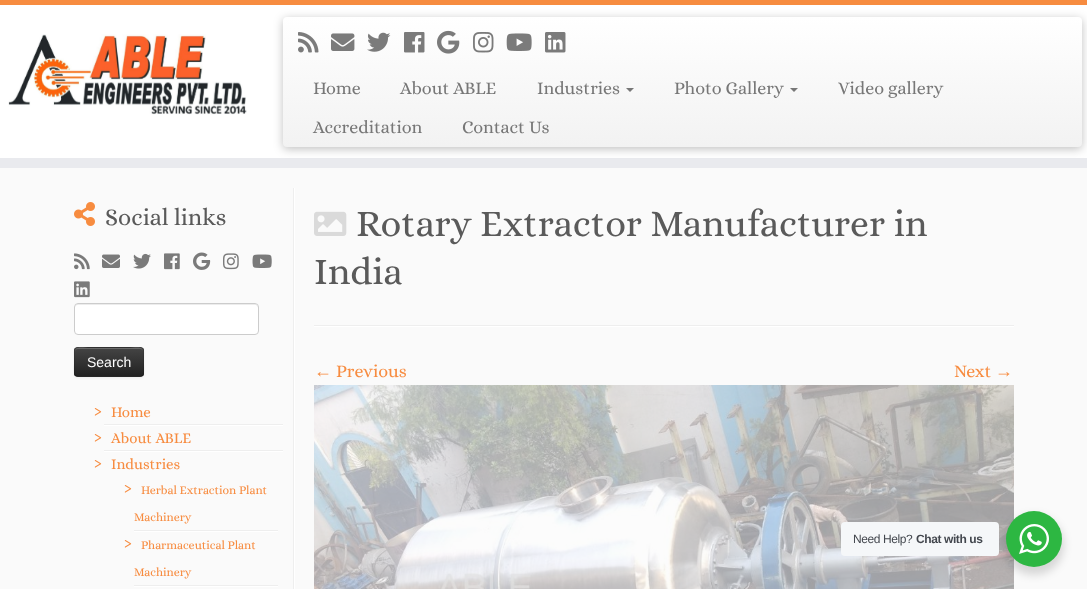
<?xml version="1.0" encoding="UTF-8"?>
<svg xmlns="http://www.w3.org/2000/svg" xmlns:xlink="http://www.w3.org/1999/xlink" width="1087" height="589">
  <defs>
    <linearGradient id="g1" gradientUnits="userSpaceOnUse" x1="683" y1="17" x2="683" y2="147"><stop offset="0" stop-color="#ffffff" /><stop offset="1" stop-color="#f2f2f2" /></linearGradient>
    <clipPath id="clip1"><rect x="74" y="347" width="70" height="30" rx="4" /></clipPath>
    <linearGradient id="g2" gradientUnits="userSpaceOnUse" x1="109" y1="348" x2="109" y2="376"><stop offset="0" stop-color="#444444" /><stop offset="1" stop-color="#222222" /></linearGradient>
  </defs>
  <rect width="100%" height="100%" fill="#fafafa" />
  <rect y="5" width="1087" height="153" fill="#ffffff" />
  <rect width="1087" height="5" fill="#f78c40" />
  <rect y="158" width="1087" height="10" fill="#e9eaee" />
  <image x="8" y="34" width="239" height="81" xlink:href="image1.png" />
  <rect x="283" y="19" width="799" height="130" rx="4" fill="#000000" fill-opacity="0.25" filter="blur(5px)" />
  <rect x="283" y="17" width="799" height="130" rx="4" fill="url(#g1)" />
  <image x="298" y="32" width="21" height="21" xlink:href="image2.png" />
  <image x="331" y="33" width="24" height="18" xlink:href="image3.png" />
  <image x="367" y="32" width="24" height="20" xlink:href="image4.png" />
  <image x="404" y="32" width="21" height="21" xlink:href="image5.png" />
  <image x="437" y="30" width="23" height="24" xlink:href="image6.png" />
  <image x="473" y="32" width="21" height="21" xlink:href="image7.png" />
  <image x="506" y="33" width="26" height="18" xlink:href="image8.png" />
  <image x="545" y="32" width="21" height="21" xlink:href="image9.png" />
  <path d="M 626 88 h 8 l -4 4 z" fill="#777777" />
  <path d="M 790 88 h 8 l -4 4 z" fill="#777777" />
  <rect x="293" y="188" width="1" height="401" fill="#eeeeee" />
  <image x="74" y="202" width="21" height="24" xlink:href="image10.png" />
  <image x="74" y="253" width="16" height="17" xlink:href="image11.png" />
  <image x="102" y="254" width="18" height="14" xlink:href="image12.png" />
  <image x="133" y="253" width="18" height="16" xlink:href="image13.png" />
  <image x="164" y="253" width="16" height="17" xlink:href="image14.png" />
  <image x="193" y="252" width="18" height="18" xlink:href="image15.png" />
  <image x="223" y="253" width="16" height="17" xlink:href="image16.png" />
  <image x="252" y="254" width="20" height="14" xlink:href="image17.png" />
  <image x="74" y="281" width="16" height="17" xlink:href="image18.png" />
  <rect x="294" y="188" width="1" height="401" fill="#ffffff" />
  <rect x="74" y="303" width="185" height="32" rx="4" fill="#ffffff" />
  <path d="M 78 305 h 178 l 1 1 l 1 2 c 0 -2 -1 -4 -3 -4 h -178 c -2 1 -2 2 -2 4 c 0 -2 1 -3 3 -3 z" fill="#ececec" />
  <rect x="74.5" y="303.5" width="184" height="31" rx="3.5" fill="none" stroke="#cccccc" />
  <rect x="74" y="348" width="70" height="30" rx="4" fill="#000000" fill-opacity="0.05" filter="blur(1px)" />
  <rect x="74" y="347" width="70" height="30" rx="4" fill="#363636" />
  <g clip-path="url(#clip1)">
    <rect x="74" y="348" width="70" height="28" fill="url(#g2)" />
  </g>
  <path d="M 78 349 h 62 c 2 0 3 1 3 3 c 0 -7 -9 -4 -13 -4 h -42 c -4 0 -13 -3 -13 4 c 0 -2 1 -3 3 -3 z" fill="#ffffff" fill-opacity="0.2" />
  <path d="M 142.5 375.5 l -2 1 h -63 l -2 -1" fill="none" stroke="#000000" stroke-opacity="0.25" />
  <path d="M 75.5 375.5 c -2 -2 -1 -10.5 -1 -13.5 c 0 -16 -2.5 -14.5 14 -14.5 h 41 c 16.5 0 14 -1.5 14 14.5 c 0 3 1 11.5 -1 13.5" fill="none" stroke="#000000" stroke-opacity="0.1" />
  <rect x="104" y="424" width="179" height="1" fill="#eeeeee" />
  <rect x="104" y="425" width="179" height="1" fill="#ffffff" />
  <rect x="104" y="450" width="179" height="1" fill="#eeeeee" />
  <rect x="104" y="451" width="179" height="1" fill="#ffffff" />
  <rect x="134" y="530" width="144" height="1" fill="#eeeeee" />
  <rect x="134" y="531" width="144" height="1" fill="#ffffff" />
  <rect x="134" y="585" width="144" height="1" fill="#eeeeee" />
  <rect x="134" y="586" width="144" height="1" fill="#ffffff" />
  <image x="314" y="211" width="33" height="25" xlink:href="image19.png" />
  <rect x="314" y="325" width="700" height="1" fill="#eeeeee" />
  <rect x="314" y="326" width="700" height="1" fill="#ffffff" />
  <image x="314" y="385" width="700" height="204" xlink:href="image20.png" />
  <rect x="1004" y="515" width="60" height="60" rx="30" fill="#000000" fill-opacity="0.14" filter="blur(4px)" />
  <rect x="841" y="522" width="158" height="34" rx="4" fill="#f5f7f9" />
  <circle cx="1034" cy="539" r="28" fill="#2db742" />
  <image x="1019" y="524" width="30" height="30" xlink:href="image21.png" />
  <text x="313" y="94" style="font-family: Alice; font-size: 18px; fill: #777777">Home</text>
  <text x="400" y="94" style="font-family: Alice; font-size: 18px; fill: #777777">About ABLE</text>
  <text x="537" y="94" style="font-family: Alice; font-size: 18px; fill: #777777">Industries</text>
  <text x="674" y="94" style="font-family: Alice; font-size: 18px; fill: #777777">Photo Gallery</text>
  <text x="838" y="94" style="font-family: Alice; font-size: 18px; fill: #777777">Video gallery</text>
  <text x="313" y="133" style="font-family: Alice; font-size: 18px; fill: #777777">Accreditation</text>
  <text x="462" y="133" style="font-family: Alice; font-size: 18px; fill: #777777">Contact Us</text>
  <text x="105" y="225" style="font-family: Alice; font-size: 24px; fill: #5a5a5a">Social links</text>
  <text x="87" y="367" style="font-family: Liberation Sans; font-size: 14px; fill: #ffffff">Search</text>
  <text x="94" y="417" style="font-family: Alice; font-size: 18px; fill: #f78c40">›</text>
  <text x="111" y="417" style="font-family: Alice; font-size: 15px; fill: #f78c40">Home</text>
  <text x="94" y="443" style="font-family: Alice; font-size: 18px; fill: #f78c40">›</text>
  <text x="111" y="443" style="font-family: Alice; font-size: 15px; fill: #f78c40">About ABLE</text>
  <text x="94" y="469" style="font-family: Alice; font-size: 18px; fill: #f78c40">›</text>
  <text x="111" y="469" style="font-family: Alice; font-size: 15px; fill: #f78c40">Industries</text>
  <text x="124" y="494" style="font-family: Alice; font-size: 18px; fill: #f78c40">›</text>
  <text x="141" y="494" style="font-family: Alice; font-size: 12px; fill: #f78c40">Herbal Extraction Plant</text>
  <text x="134" y="521" style="font-family: Alice; font-size: 12px; fill: #f78c40">Machinery</text>
  <text x="124" y="549" style="font-family: Alice; font-size: 18px; fill: #f78c40">›</text>
  <text x="141" y="549" style="font-family: Alice; font-size: 12px; fill: #f78c40">Pharmaceutical Plant</text>
  <text x="134" y="576" style="font-family: Alice; font-size: 12px; fill: #f78c40">Machinery</text>
  <text x="356" y="236" style="font-family: Alice; font-size: 38px; fill: #5a5a5a">Rotary Extractor Manufacturer in</text>
  <text x="314" y="284" style="font-family: Alice; font-size: 38px; fill: #5a5a5a">India</text>
  <text x="314" y="377" style="font-family: Liberation Serif; font-size: 18px; fill: #f78c40">←</text>
  <text x="336" y="377" style="font-family: Alice; font-size: 18px; fill: #f78c40">Previous</text>
  <text x="954" y="377" style="font-family: Alice; font-size: 18px; fill: #f78c40">Next</text>
  <text x="995" y="377" style="font-family: Liberation Serif; font-size: 18px; fill: #f78c40">→</text>
  <text x="853" y="543" style="font-family: Liberation Sans; font-size: 12px; letter-spacing: -0.4px; fill: #43474e">Need Help?</text>
  <text x="916" y="543" style="font-family: Liberation Sans; font-size: 12px; font-weight: bold; letter-spacing: -0.4px; fill: #43474e">Chat with us</text>
</svg>
